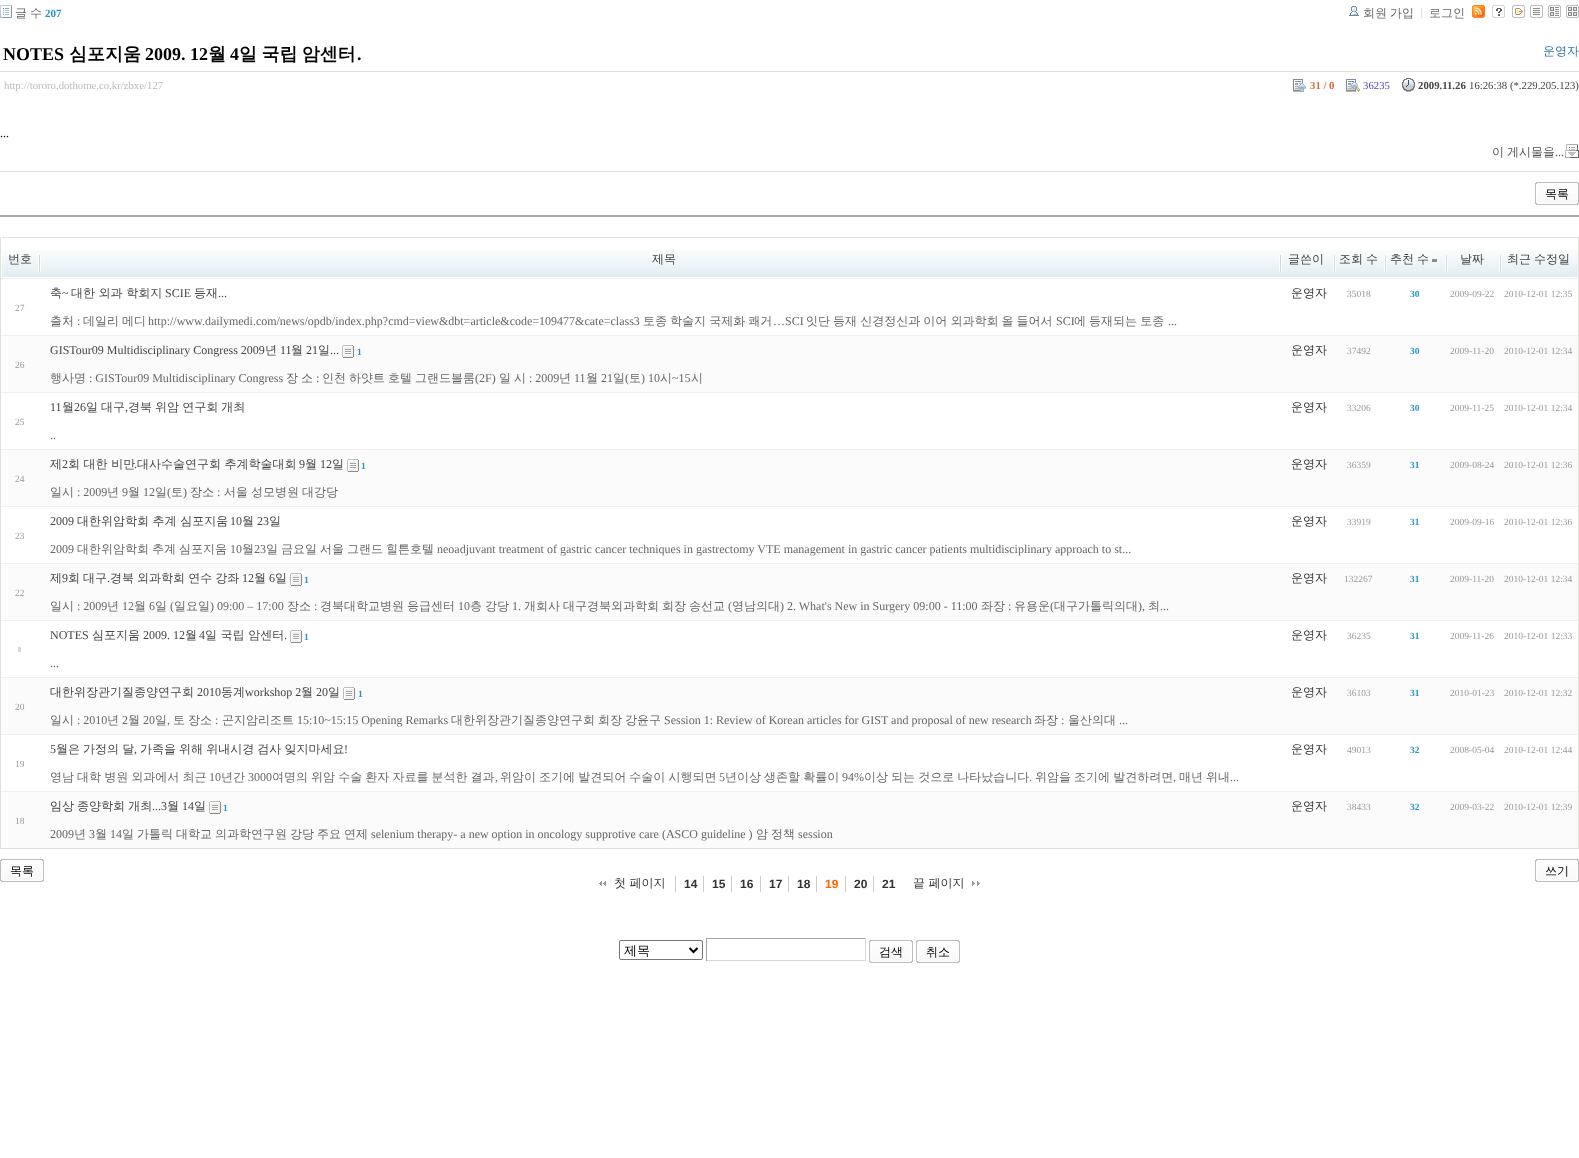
<?xml version="1.0" encoding="UTF-8"?>
<svg xmlns="http://www.w3.org/2000/svg" xmlns:xlink="http://www.w3.org/1999/xlink" width="1579" height="1158">
  <rect width="100%" height="100%" fill="#ffffff" />
  <image x="0" y="5" width="12" height="13" xlink:href="image1.png" />
  <image x="1349" y="6" width="10" height="10" xlink:href="image2.png" />
  <rect x="1421" y="8" width="1" height="10" fill="#e0e0e0" />
  <image x="1472" y="5" width="13" height="13" xlink:href="image3.png" />
  <image x="1492" y="5" width="13" height="13" xlink:href="image4.png" />
  <image x="1512" y="5" width="13" height="13" xlink:href="image5.png" />
  <image x="1530" y="5" width="13" height="13" xlink:href="image6.png" />
  <image x="1548" y="5" width="13" height="13" xlink:href="image7.png" />
  <image x="1566" y="5" width="13" height="13" xlink:href="image8.png" />
  <rect y="215" width="1579" height="2" fill="#aaaaaa" />
  <rect y="71" width="1579" height="1" fill="#e0e1db" />
  <image x="1293" y="79" width="13" height="13" xlink:href="image9.png" />
  <image x="1346" y="79" width="14" height="13" xlink:href="image10.png" />
  <image x="1402" y="78" width="13" height="14" xlink:href="image11.png" />
  <image x="1565" y="144" width="14" height="14" xlink:href="image12.png" />
  <rect y="171" width="1579" height="1" fill="#dddddd" />
  <image x="1535" y="182" width="42" height="23" xlink:href="image13.png" />
  <image x="1577" y="182" width="2" height="23" xlink:href="image14.png" />
  <rect x="1578" y="237" width="1" height="612" fill="#e0e1db" />
  <rect y="848" width="1579" height="1" fill="#e0e1db" />
  <rect y="237" width="1" height="612" fill="#e0e1db" />
  <image x="2" y="250" width="36" height="27" xlink:href="image15.png" />
  <rect x="1" y="237" width="1577" height="1" fill="#e0e1db" />
  <rect x="1" y="237" width="1" height="1" fill="#ffffff" />
  <image x="38" y="250" width="1241" height="27" xlink:href="image16.png" />
  <image x="1279" y="250" width="54" height="27" xlink:href="image17.png" />
  <image x="1333" y="250" width="51" height="27" xlink:href="image18.png" />
  <image x="1384" y="250" width="61" height="27" xlink:href="image19.png" />
  <rect x="1432" y="259" width="5" height="3" fill="#8c8f86" />
  <image x="1445" y="250" width="54" height="27" xlink:href="image17.png" />
  <image x="1499" y="250" width="79" height="27" xlink:href="image20.png" />
  <rect x="1" y="278" width="1577" height="1" fill="#eff0ed" />
  <rect x="1" y="336" width="1577" height="56" fill="#fbfbfb" />
  <image x="342" y="345" width="12" height="13" xlink:href="image21.png" />
  <rect x="1" y="335" width="1577" height="1" fill="#eff0ed" />
  <rect x="1" y="392" width="1577" height="1" fill="#eff0ed" />
  <rect x="1" y="450" width="1577" height="56" fill="#fbfbfb" />
  <image x="347" y="459" width="12" height="13" xlink:href="image21.png" />
  <rect x="1" y="449" width="1577" height="1" fill="#eff0ed" />
  <rect x="1" y="506" width="1577" height="1" fill="#eff0ed" />
  <rect x="1" y="564" width="1577" height="56" fill="#fbfbfb" />
  <image x="290" y="573" width="12" height="13" xlink:href="image21.png" />
  <rect x="1" y="563" width="1577" height="1" fill="#eff0ed" />
  <rect x="1" y="620" width="1577" height="1" fill="#eff0ed" />
  <rect x="18" y="647" width="3" height="5" fill="#d8d8d8" />
  <image x="290" y="630" width="12" height="13" xlink:href="image22.png" />
  <rect x="1" y="678" width="1577" height="56" fill="#fbfbfb" />
  <image x="343" y="687" width="12" height="13" xlink:href="image21.png" />
  <rect x="1" y="677" width="1577" height="1" fill="#eff0ed" />
  <rect x="1" y="734" width="1577" height="1" fill="#eff0ed" />
  <rect x="1" y="792" width="1577" height="56" fill="#fbfbfb" />
  <image x="209" y="801" width="12" height="13" xlink:href="image21.png" />
  <rect x="1" y="791" width="1577" height="1" fill="#eff0ed" />
  <image x="0" y="859" width="42" height="23" xlink:href="image13.png" />
  <image x="42" y="859" width="2" height="23" xlink:href="image14.png" />
  <image x="1535" y="859" width="42" height="23" xlink:href="image13.png" />
  <image x="1577" y="859" width="2" height="23" xlink:href="image14.png" />
  <image x="599" y="881" width="7" height="5" xlink:href="image23.png" />
  <rect x="675" y="876" width="1" height="16" fill="#cccccc" />
  <rect x="703" y="876" width="1" height="16" fill="#cccccc" />
  <rect x="731" y="876" width="1" height="16" fill="#cccccc" />
  <rect x="760" y="876" width="1" height="16" fill="#cccccc" />
  <rect x="788" y="876" width="1" height="16" fill="#cccccc" />
  <rect x="816" y="876" width="1" height="16" fill="#cccccc" />
  <rect x="845" y="876" width="1" height="16" fill="#cccccc" />
  <rect x="873" y="876" width="1" height="16" fill="#cccccc" />
  <image x="972" y="881" width="8" height="5" xlink:href="image24.png" />
  <rect x="619.5" y="940.5" width="83" height="19" rx="1.5" fill="none" stroke="#767676" />
  <path d="M 689.5 948 l 4 4 l 4 -4" fill="none" stroke="#000000" stroke-width="2" />
  <rect x="706" y="938" width="160" height="1" fill="#a6a6a6" />
  <rect x="865" y="938" width="1" height="23" fill="#d8d8d8" />
  <rect x="706" y="960" width="160" height="1" fill="#d8d8d8" />
  <rect x="706" y="938" width="1" height="23" fill="#a6a6a6" />
  <image x="869" y="940" width="42" height="23" xlink:href="image13.png" />
  <image x="911" y="940" width="2" height="23" xlink:href="image14.png" />
  <image x="916" y="940" width="42" height="23" xlink:href="image13.png" />
  <image x="958" y="940" width="2" height="23" xlink:href="image14.png" />
  <text x="15" y="17" word-spacing="-0.5" style="font-family: WenQuanYi Zen Hei; font-size: 12px; font-weight: 500; fill: #666666">글 수</text>
  <text x="45" y="17" style="font-family: Liberation Serif; font-size: 11px; font-weight: bold; fill: #2895c0">207</text>
  <text x="1363" y="17" word-spacing="-0.5" style="font-family: WenQuanYi Zen Hei; font-size: 12px; font-weight: 500; fill: #666666">회원 가입</text>
  <text x="1429" y="17" style="font-family: WenQuanYi Zen Hei; font-size: 12px; font-weight: 500; fill: #666666">로그인</text>
  <text x="3" y="60" style="font-family: Liberation Serif; font-size: 18px; font-weight: bold; fill: #000000">NOTES</text>
  <text x="69" y="60" style="font-family: WenQuanYi Zen Hei; font-size: 18px; font-weight: bold; fill: #000000">심포지움</text>
  <text x="145" y="60" style="font-family: Liberation Serif; font-size: 18px; font-weight: bold; fill: #000000">2009. 12</text>
  <text x="208" y="60" style="font-family: WenQuanYi Zen Hei; font-size: 18px; font-weight: bold; fill: #000000">월</text>
  <text x="230" y="60" style="font-family: Liberation Serif; font-size: 18px; font-weight: bold; fill: #000000">4</text>
  <text x="239" y="60" word-spacing="-1" style="font-family: WenQuanYi Zen Hei; font-size: 18px; font-weight: bold; fill: #000000">일 국립 암센터</text>
  <text x="357" y="60" style="font-family: Liberation Serif; font-size: 18px; font-weight: bold; fill: #000000">.</text>
  <text x="1543" y="55" style="font-family: WenQuanYi Zen Hei; font-size: 12px; font-weight: 500; fill: #3074a5">운영자</text>
  <text x="4" y="89" style="font-family: Liberation Serif; font-size: 10.75px; fill: #bbbbbb">http://tororo.dothome.co.kr/zbxe/127</text>
  <text x="1310" y="89" style="font-family: Liberation Serif; font-size: 10.75px; font-weight: bold; fill: #d76a3f">31 / 0</text>
  <text x="1363" y="89" style="font-family: Liberation Serif; font-size: 10.75px; fill: #4a3fd7">36235</text>
  <text x="1418" y="89" style="font-family: Liberation Serif; font-size: 10.75px; font-weight: bold; fill: #444444">2009.11.26</text>
  <text x="1469" y="89" style="font-family: Liberation Serif; font-size: 10.75px; fill: #444444">16:26:38 (*.229.205.123)</text>
  <text x="0" y="137" style="font-family: Liberation Serif; font-size: 12px; fill: #000000">...</text>
  <text x="1492" y="156" word-spacing="-0.5" style="font-family: WenQuanYi Zen Hei; font-size: 12px; font-weight: 500; fill: #555555">이 게시물을</text>
  <text x="1555" y="156" style="font-family: Liberation Serif; font-size: 12px; fill: #555555">...</text>
  <text x="1545" y="198" style="font-family: WenQuanYi Zen Hei; font-size: 12px; font-weight: 500; fill: #000000">목록</text>
  <text x="8" y="263" style="font-family: WenQuanYi Zen Hei; font-size: 12px; font-weight: 500; fill: #3e3f3e">번호</text>
  <text x="652" y="263" style="font-family: WenQuanYi Zen Hei; font-size: 12px; font-weight: 500; fill: #3e3f3e">제목</text>
  <text x="1288" y="263" style="font-family: WenQuanYi Zen Hei; font-size: 12px; font-weight: 500; fill: #3e3f3e">글쓴이</text>
  <text x="1339" y="263" word-spacing="-0.5" style="font-family: WenQuanYi Zen Hei; font-size: 12px; font-weight: 500; fill: #3e3f3e">조회 수</text>
  <text x="1390" y="263" word-spacing="-0.5" style="font-family: WenQuanYi Zen Hei; font-size: 12px; font-weight: 500; fill: #3e3f3e">추천 수</text>
  <text x="1460" y="263" style="font-family: WenQuanYi Zen Hei; font-size: 12px; font-weight: 500; fill: #3e3f3e">날짜</text>
  <text x="1507" y="263" word-spacing="-0.5" style="font-family: WenQuanYi Zen Hei; font-size: 12px; font-weight: 500; fill: #3e3f3e">최근 수정일</text>
  <text x="50" y="297" style="font-family: WenQuanYi Zen Hei; font-size: 12px; font-weight: 500; fill: #444444">축</text>
  <text x="62" y="297" style="font-family: Liberation Serif; font-size: 12px; fill: #444444">~</text>
  <text x="71" y="297" style="font-family: WenQuanYi Zen Hei; font-size: 12px; font-weight: 500; fill: #444444">대한 외과 학회지</text>
  <text x="165" y="297" style="font-family: Liberation Serif; font-size: 12px; fill: #444444">SCIE</text>
  <text x="194" y="297" style="font-family: WenQuanYi Zen Hei; font-size: 12px; font-weight: 500; fill: #444444">등재</text>
  <text x="218" y="297" style="font-family: Liberation Serif; font-size: 12px; fill: #444444">...</text>
  <text x="1291" y="297" style="font-family: WenQuanYi Zen Hei; font-size: 12px; font-weight: 500; fill: #333333">운영자</text>
  <text x="1347" y="297" style="font-family: Liberation Serif; font-size: 9.5px; fill: #999999">35018</text>
  <text x="1410" y="297" style="font-family: Liberation Serif; font-size: 9.5px; font-weight: bold; fill: #2895c0">30</text>
  <text x="1450" y="297" style="font-family: Liberation Serif; font-size: 9.5px; fill: #999999">2009-09-22</text>
  <text x="1504" y="297" style="font-family: Liberation Serif; font-size: 9.5px; fill: #999999">2010-12-01 12:35</text>
  <text x="15" y="311" style="font-family: Liberation Serif; font-size: 9.5px; fill: #999999">27</text>
  <text x="50" y="325" style="font-family: WenQuanYi Zen Hei; font-size: 12px; font-weight: 500; fill: #666666">출처</text>
  <text x="77" y="325" style="font-family: Liberation Serif; font-size: 12px; fill: #666666">:</text>
  <text x="83" y="325" word-spacing="-0.5" style="font-family: WenQuanYi Zen Hei; font-size: 12px; font-weight: 500; fill: #666666">데일리 메디</text>
  <text x="148" y="325" style="font-family: Liberation Serif; font-size: 12px; fill: #666666">http://www.dailymedi.com/news/opdb/index.php?cmd=view&amp;dbt=article&amp;code=109477&amp;cate=class3</text>
  <text x="643" y="325" word-spacing="-0.5" style="font-family: WenQuanYi Zen Hei; font-size: 12px; font-weight: 500; fill: #666666">토종 학술지 국제화 쾌거</text>
  <text x="773" y="325" style="font-family: Liberation Serif; font-size: 12px; fill: #666666">…SCI</text>
  <text x="806" y="325" word-spacing="-0.5" style="font-family: WenQuanYi Zen Hei; font-size: 12px; font-weight: 500; fill: #666666">잇단 등재 신경정신과 이어 외과학회 올 들어서</text>
  <text x="1056" y="325" style="font-family: Liberation Serif; font-size: 12px; fill: #666666">SCI</text>
  <text x="1074" y="325" word-spacing="-0.5" style="font-family: WenQuanYi Zen Hei; font-size: 12px; font-weight: 500; fill: #666666">에 등재되는 토종</text>
  <text x="1168" y="325" style="font-family: Liberation Serif; font-size: 12px; fill: #666666">...</text>
  <text x="50" y="354" style="font-family: Liberation Serif; font-size: 12px; fill: #444444">GISTour09 Multidisciplinary Congress 2009</text>
  <text x="265" y="354" style="font-family: WenQuanYi Zen Hei; font-size: 12px; font-weight: 500; fill: #444444">년</text>
  <text x="280" y="354" style="font-family: Liberation Serif; font-size: 12px; fill: #444444">11</text>
  <text x="291" y="354" style="font-family: WenQuanYi Zen Hei; font-size: 12px; font-weight: 500; fill: #444444">월</text>
  <text x="306" y="354" style="font-family: Liberation Serif; font-size: 12px; fill: #444444">21</text>
  <text x="318" y="354" style="font-family: WenQuanYi Zen Hei; font-size: 12px; font-weight: 500; fill: #444444">일</text>
  <text x="330" y="354" style="font-family: Liberation Serif; font-size: 12px; fill: #444444">...</text>
  <text x="357" y="355" style="font-family: Liberation Serif; font-size: 9.5px; font-weight: bold; fill: #2895c0">1</text>
  <text x="1291" y="354" style="font-family: WenQuanYi Zen Hei; font-size: 12px; font-weight: 500; fill: #333333">운영자</text>
  <text x="1347" y="354" style="font-family: Liberation Serif; font-size: 9.5px; fill: #999999">37492</text>
  <text x="1410" y="354" style="font-family: Liberation Serif; font-size: 9.5px; font-weight: bold; fill: #2895c0">30</text>
  <text x="1450" y="354" style="font-family: Liberation Serif; font-size: 9.5px; fill: #999999">2009-11-20</text>
  <text x="1504" y="354" style="font-family: Liberation Serif; font-size: 9.5px; fill: #999999">2010-12-01 12:34</text>
  <text x="15" y="368" style="font-family: Liberation Serif; font-size: 9.5px; fill: #999999">26</text>
  <text x="50" y="382" style="font-family: WenQuanYi Zen Hei; font-size: 12px; font-weight: 500; fill: #666666">행사명</text>
  <text x="89" y="382" style="font-family: Liberation Serif; font-size: 12px; fill: #666666">: GISTour09 Multidisciplinary Congress</text>
  <text x="286" y="382" style="font-family: WenQuanYi Zen Hei; font-size: 12px; font-weight: 500; fill: #666666">장</text>
  <text x="301" y="382" style="font-family: WenQuanYi Zen Hei; font-size: 12px; font-weight: 500; fill: #666666">소</text>
  <text x="316" y="382" style="font-family: Liberation Serif; font-size: 12px; fill: #666666">:</text>
  <text x="322" y="382" style="font-family: WenQuanYi Zen Hei; font-size: 12px; font-weight: 500; fill: #666666">인천</text>
  <text x="349" y="382" style="font-family: WenQuanYi Zen Hei; font-size: 12px; font-weight: 500; fill: #666666">하얏트</text>
  <text x="388" y="382" style="font-family: WenQuanYi Zen Hei; font-size: 12px; font-weight: 500; fill: #666666">호텔</text>
  <text x="415" y="382" style="font-family: WenQuanYi Zen Hei; font-size: 12px; font-weight: 500; fill: #666666">그랜드볼룸</text>
  <text x="475" y="382" style="font-family: Liberation Serif; font-size: 12px; fill: #666666">(2F)</text>
  <text x="499" y="382" style="font-family: WenQuanYi Zen Hei; font-size: 12px; font-weight: 500; fill: #666666">일</text>
  <text x="514" y="382" style="font-family: WenQuanYi Zen Hei; font-size: 12px; font-weight: 500; fill: #666666">시</text>
  <text x="529" y="382" style="font-family: Liberation Serif; font-size: 12px; fill: #666666">: 2009</text>
  <text x="559" y="382" style="font-family: WenQuanYi Zen Hei; font-size: 12px; font-weight: 500; fill: #666666">년</text>
  <text x="574" y="382" style="font-family: Liberation Serif; font-size: 12px; fill: #666666">11</text>
  <text x="586" y="382" style="font-family: WenQuanYi Zen Hei; font-size: 12px; font-weight: 500; fill: #666666">월</text>
  <text x="601" y="382" style="font-family: Liberation Serif; font-size: 12px; fill: #666666">21</text>
  <text x="613" y="382" style="font-family: WenQuanYi Zen Hei; font-size: 12px; font-weight: 500; fill: #666666">일</text>
  <text x="625" y="382" style="font-family: Liberation Serif; font-size: 12px; fill: #666666">(</text>
  <text x="629" y="382" style="font-family: WenQuanYi Zen Hei; font-size: 12px; font-weight: 500; fill: #666666">토</text>
  <text x="641" y="382" style="font-family: Liberation Serif; font-size: 12px; fill: #666666">) 10</text>
  <text x="660" y="382" style="font-family: WenQuanYi Zen Hei; font-size: 12px; font-weight: 500; fill: #666666">시</text>
  <text x="672" y="382" style="font-family: Liberation Serif; font-size: 12px; fill: #666666">~15</text>
  <text x="691" y="382" style="font-family: WenQuanYi Zen Hei; font-size: 12px; font-weight: 500; fill: #666666">시</text>
  <text x="50" y="411" style="font-family: Liberation Serif; font-size: 12px; fill: #444444">11</text>
  <text x="62" y="411" style="font-family: WenQuanYi Zen Hei; font-size: 12px; font-weight: 500; fill: #444444">월</text>
  <text x="74" y="411" style="font-family: Liberation Serif; font-size: 12px; fill: #444444">26</text>
  <text x="86" y="411" word-spacing="-0.5" style="font-family: WenQuanYi Zen Hei; font-size: 12px; font-weight: 500; fill: #444444">일 대구</text>
  <text x="125" y="411" style="font-family: Liberation Serif; font-size: 12px; fill: #444444">,</text>
  <text x="128" y="411" word-spacing="-0.5" style="font-family: WenQuanYi Zen Hei; font-size: 12px; font-weight: 500; fill: #444444">경북 위암 연구회 개최</text>
  <text x="1291" y="411" style="font-family: WenQuanYi Zen Hei; font-size: 12px; font-weight: 500; fill: #333333">운영자</text>
  <text x="1347" y="411" style="font-family: Liberation Serif; font-size: 9.5px; fill: #999999">33206</text>
  <text x="1410" y="411" style="font-family: Liberation Serif; font-size: 9.5px; font-weight: bold; fill: #2895c0">30</text>
  <text x="1450" y="411" style="font-family: Liberation Serif; font-size: 9.5px; fill: #999999">2009-11-25</text>
  <text x="1504" y="411" style="font-family: Liberation Serif; font-size: 9.5px; fill: #999999">2010-12-01 12:34</text>
  <text x="15" y="425" style="font-family: Liberation Serif; font-size: 9.5px; fill: #999999">25</text>
  <text x="50" y="439" style="font-family: Liberation Serif; font-size: 12px; fill: #666666">..</text>
  <text x="50" y="468" style="font-family: WenQuanYi Zen Hei; font-size: 12px; font-weight: 500; fill: #444444">제</text>
  <text x="62" y="468" style="font-family: Liberation Serif; font-size: 12px; fill: #444444">2</text>
  <text x="68" y="468" style="font-family: WenQuanYi Zen Hei; font-size: 12px; font-weight: 500; fill: #444444">회 대한 비만</text>
  <text x="134" y="468" style="font-family: Liberation Serif; font-size: 12px; fill: #444444">.</text>
  <text x="137" y="468" style="font-family: WenQuanYi Zen Hei; font-size: 12px; font-weight: 500; fill: #444444">대사수술연구회 추계학술대회</text>
  <text x="299" y="468" style="font-family: Liberation Serif; font-size: 12px; fill: #444444">9</text>
  <text x="305" y="468" style="font-family: WenQuanYi Zen Hei; font-size: 12px; font-weight: 500; fill: #444444">월</text>
  <text x="320" y="468" style="font-family: Liberation Serif; font-size: 12px; fill: #444444">12</text>
  <text x="332" y="468" style="font-family: WenQuanYi Zen Hei; font-size: 12px; font-weight: 500; fill: #444444">일</text>
  <text x="361" y="469" style="font-family: Liberation Serif; font-size: 9.5px; font-weight: bold; fill: #2895c0">1</text>
  <text x="1291" y="468" style="font-family: WenQuanYi Zen Hei; font-size: 12px; font-weight: 500; fill: #333333">운영자</text>
  <text x="1347" y="468" style="font-family: Liberation Serif; font-size: 9.5px; fill: #999999">36359</text>
  <text x="1410" y="468" style="font-family: Liberation Serif; font-size: 9.5px; font-weight: bold; fill: #2895c0">31</text>
  <text x="1450" y="468" style="font-family: Liberation Serif; font-size: 9.5px; fill: #999999">2009-08-24</text>
  <text x="1504" y="468" style="font-family: Liberation Serif; font-size: 9.5px; fill: #999999">2010-12-01 12:36</text>
  <text x="15" y="482" style="font-family: Liberation Serif; font-size: 9.5px; fill: #999999">24</text>
  <text x="50" y="496" style="font-family: WenQuanYi Zen Hei; font-size: 12px; font-weight: 500; fill: #666666">일시</text>
  <text x="77" y="496" style="font-family: Liberation Serif; font-size: 12px; fill: #666666">: 2009</text>
  <text x="107" y="496" style="font-family: WenQuanYi Zen Hei; font-size: 12px; font-weight: 500; fill: #666666">년</text>
  <text x="122" y="496" style="font-family: Liberation Serif; font-size: 12px; fill: #666666">9</text>
  <text x="128" y="496" style="font-family: WenQuanYi Zen Hei; font-size: 12px; font-weight: 500; fill: #666666">월</text>
  <text x="143" y="496" style="font-family: Liberation Serif; font-size: 12px; fill: #666666">12</text>
  <text x="155" y="496" style="font-family: WenQuanYi Zen Hei; font-size: 12px; font-weight: 500; fill: #666666">일</text>
  <text x="167" y="496" style="font-family: Liberation Serif; font-size: 12px; fill: #666666">(</text>
  <text x="171" y="496" style="font-family: WenQuanYi Zen Hei; font-size: 12px; font-weight: 500; fill: #666666">토</text>
  <text x="183" y="496" style="font-family: Liberation Serif; font-size: 12px; fill: #666666">)</text>
  <text x="190" y="496" style="font-family: WenQuanYi Zen Hei; font-size: 12px; font-weight: 500; fill: #666666">장소</text>
  <text x="217" y="496" style="font-family: Liberation Serif; font-size: 12px; fill: #666666">:</text>
  <text x="224" y="496" style="font-family: WenQuanYi Zen Hei; font-size: 12px; font-weight: 500; fill: #666666">서울</text>
  <text x="251" y="496" style="font-family: WenQuanYi Zen Hei; font-size: 12px; font-weight: 500; fill: #666666">성모병원</text>
  <text x="302" y="496" style="font-family: WenQuanYi Zen Hei; font-size: 12px; font-weight: 500; fill: #666666">대강당</text>
  <text x="50" y="525" style="font-family: Liberation Serif; font-size: 12px; fill: #444444">2009</text>
  <text x="77" y="525" style="font-family: WenQuanYi Zen Hei; font-size: 12px; font-weight: 500; fill: #444444">대한위암학회 추계 심포지움</text>
  <text x="230" y="525" style="font-family: Liberation Serif; font-size: 12px; fill: #444444">10</text>
  <text x="242" y="525" style="font-family: WenQuanYi Zen Hei; font-size: 12px; font-weight: 500; fill: #444444">월</text>
  <text x="257" y="525" style="font-family: Liberation Serif; font-size: 12px; fill: #444444">23</text>
  <text x="269" y="525" style="font-family: WenQuanYi Zen Hei; font-size: 12px; font-weight: 500; fill: #444444">일</text>
  <text x="1291" y="525" style="font-family: WenQuanYi Zen Hei; font-size: 12px; font-weight: 500; fill: #333333">운영자</text>
  <text x="1347" y="525" style="font-family: Liberation Serif; font-size: 9.5px; fill: #999999">33919</text>
  <text x="1410" y="525" style="font-family: Liberation Serif; font-size: 9.5px; font-weight: bold; fill: #2895c0">31</text>
  <text x="1450" y="525" style="font-family: Liberation Serif; font-size: 9.5px; fill: #999999">2009-09-16</text>
  <text x="1504" y="525" style="font-family: Liberation Serif; font-size: 9.5px; fill: #999999">2010-12-01 12:36</text>
  <text x="15" y="539" style="font-family: Liberation Serif; font-size: 9.5px; fill: #999999">23</text>
  <text x="50" y="553" style="font-family: Liberation Serif; font-size: 12px; fill: #666666">2009</text>
  <text x="77" y="553" style="font-family: WenQuanYi Zen Hei; font-size: 12px; font-weight: 500; fill: #666666">대한위암학회</text>
  <text x="152" y="553" style="font-family: WenQuanYi Zen Hei; font-size: 12px; font-weight: 500; fill: #666666">추계</text>
  <text x="179" y="553" style="font-family: WenQuanYi Zen Hei; font-size: 12px; font-weight: 500; fill: #666666">심포지움</text>
  <text x="230" y="553" style="font-family: Liberation Serif; font-size: 12px; fill: #666666">10</text>
  <text x="242" y="553" style="font-family: WenQuanYi Zen Hei; font-size: 12px; font-weight: 500; fill: #666666">월</text>
  <text x="254" y="553" style="font-family: Liberation Serif; font-size: 12px; fill: #666666">23</text>
  <text x="266" y="553" style="font-family: WenQuanYi Zen Hei; font-size: 12px; font-weight: 500; fill: #666666">일</text>
  <text x="281" y="553" style="font-family: WenQuanYi Zen Hei; font-size: 12px; font-weight: 500; fill: #666666">금요일</text>
  <text x="320" y="553" style="font-family: WenQuanYi Zen Hei; font-size: 12px; font-weight: 500; fill: #666666">서울</text>
  <text x="347" y="553" style="font-family: WenQuanYi Zen Hei; font-size: 12px; font-weight: 500; fill: #666666">그랜드</text>
  <text x="386" y="553" style="font-family: WenQuanYi Zen Hei; font-size: 12px; font-weight: 500; fill: #666666">힐튼호텔</text>
  <text x="437" y="553" style="font-family: Liberation Serif; font-size: 12px; fill: #666666">neoadjuvant treatment of gastric cancer techniques in gastrectomy VTE management in gastric cancer patients multidisciplinary approach to st...</text>
  <text x="50" y="582" style="font-family: WenQuanYi Zen Hei; font-size: 12px; font-weight: 500; fill: #444444">제</text>
  <text x="62" y="582" style="font-family: Liberation Serif; font-size: 12px; fill: #444444">9</text>
  <text x="68" y="582" word-spacing="-0.5" style="font-family: WenQuanYi Zen Hei; font-size: 12px; font-weight: 500; fill: #444444">회 대구</text>
  <text x="107" y="582" style="font-family: Liberation Serif; font-size: 12px; fill: #444444">.</text>
  <text x="110" y="582" word-spacing="-0.5" style="font-family: WenQuanYi Zen Hei; font-size: 12px; font-weight: 500; fill: #444444">경북 외과학회 연수 강좌</text>
  <text x="242" y="582" style="font-family: Liberation Serif; font-size: 12px; fill: #444444">12</text>
  <text x="254" y="582" style="font-family: WenQuanYi Zen Hei; font-size: 12px; font-weight: 500; fill: #444444">월</text>
  <text x="269" y="582" style="font-family: Liberation Serif; font-size: 12px; fill: #444444">6</text>
  <text x="275" y="582" style="font-family: WenQuanYi Zen Hei; font-size: 12px; font-weight: 500; fill: #444444">일</text>
  <text x="304" y="583" style="font-family: Liberation Serif; font-size: 9.5px; font-weight: bold; fill: #2895c0">1</text>
  <text x="1291" y="582" style="font-family: WenQuanYi Zen Hei; font-size: 12px; font-weight: 500; fill: #333333">운영자</text>
  <text x="1344" y="582" style="font-family: Liberation Serif; font-size: 9.5px; fill: #999999">132267</text>
  <text x="1410" y="582" style="font-family: Liberation Serif; font-size: 9.5px; font-weight: bold; fill: #2895c0">31</text>
  <text x="1450" y="582" style="font-family: Liberation Serif; font-size: 9.5px; fill: #999999">2009-11-20</text>
  <text x="1504" y="582" style="font-family: Liberation Serif; font-size: 9.5px; fill: #999999">2010-12-01 12:34</text>
  <text x="15" y="596" style="font-family: Liberation Serif; font-size: 9.5px; fill: #999999">22</text>
  <text x="50" y="610" style="font-family: WenQuanYi Zen Hei; font-size: 12px; font-weight: 500; fill: #666666">일시</text>
  <text x="77" y="610" style="font-family: Liberation Serif; font-size: 12px; fill: #666666">: 2009</text>
  <text x="107" y="610" style="font-family: WenQuanYi Zen Hei; font-size: 12px; font-weight: 500; fill: #666666">년</text>
  <text x="122" y="610" style="font-family: Liberation Serif; font-size: 12px; fill: #666666">12</text>
  <text x="134" y="610" style="font-family: WenQuanYi Zen Hei; font-size: 12px; font-weight: 500; fill: #666666">월</text>
  <text x="149" y="610" style="font-family: Liberation Serif; font-size: 12px; fill: #666666">6</text>
  <text x="155" y="610" style="font-family: WenQuanYi Zen Hei; font-size: 12px; font-weight: 500; fill: #666666">일</text>
  <text x="170" y="610" style="font-family: Liberation Serif; font-size: 12px; fill: #666666">(</text>
  <text x="174" y="610" style="font-family: WenQuanYi Zen Hei; font-size: 12px; font-weight: 500; fill: #666666">일요일</text>
  <text x="210" y="610" style="font-family: Liberation Serif; font-size: 12px; fill: #666666">) 09:00 – 17:00</text>
  <text x="287" y="610" style="font-family: WenQuanYi Zen Hei; font-size: 12px; font-weight: 500; fill: #666666">장소</text>
  <text x="314" y="610" style="font-family: Liberation Serif; font-size: 12px; fill: #666666">:</text>
  <text x="320" y="610" style="font-family: WenQuanYi Zen Hei; font-size: 12px; font-weight: 500; fill: #666666">경북대학교병원</text>
  <text x="407" y="610" style="font-family: WenQuanYi Zen Hei; font-size: 12px; font-weight: 500; fill: #666666">응급센터</text>
  <text x="458" y="610" style="font-family: Liberation Serif; font-size: 12px; fill: #666666">10</text>
  <text x="470" y="610" style="font-family: WenQuanYi Zen Hei; font-size: 12px; font-weight: 500; fill: #666666">층</text>
  <text x="485" y="610" style="font-family: WenQuanYi Zen Hei; font-size: 12px; font-weight: 500; fill: #666666">강당</text>
  <text x="512" y="610" style="font-family: Liberation Serif; font-size: 12px; fill: #666666">1.</text>
  <text x="524" y="610" style="font-family: WenQuanYi Zen Hei; font-size: 12px; font-weight: 500; fill: #666666">개회사</text>
  <text x="563" y="610" style="font-family: WenQuanYi Zen Hei; font-size: 12px; font-weight: 500; fill: #666666">대구경북외과학회</text>
  <text x="662" y="610" style="font-family: WenQuanYi Zen Hei; font-size: 12px; font-weight: 500; fill: #666666">회장</text>
  <text x="689" y="610" style="font-family: WenQuanYi Zen Hei; font-size: 12px; font-weight: 500; fill: #666666">송선교</text>
  <text x="728" y="610" style="font-family: Liberation Serif; font-size: 12px; fill: #666666">(</text>
  <text x="732" y="610" style="font-family: WenQuanYi Zen Hei; font-size: 12px; font-weight: 500; fill: #666666">영남의대</text>
  <text x="780" y="610" style="font-family: Liberation Serif; font-size: 12px; fill: #666666">) 2. What's New in Surgery 09:00 - 11:00</text>
  <text x="981" y="610" style="font-family: WenQuanYi Zen Hei; font-size: 12px; font-weight: 500; fill: #666666">좌장</text>
  <text x="1008" y="610" style="font-family: Liberation Serif; font-size: 12px; fill: #666666">:</text>
  <text x="1014" y="610" style="font-family: WenQuanYi Zen Hei; font-size: 12px; font-weight: 500; fill: #666666">유용운</text>
  <text x="1050" y="610" style="font-family: Liberation Serif; font-size: 12px; fill: #666666">(</text>
  <text x="1054" y="610" style="font-family: WenQuanYi Zen Hei; font-size: 12px; font-weight: 500; fill: #666666">대구가톨릭의대</text>
  <text x="1138" y="610" style="font-family: Liberation Serif; font-size: 12px; fill: #666666">),</text>
  <text x="1148" y="610" style="font-family: WenQuanYi Zen Hei; font-size: 12px; font-weight: 500; fill: #666666">최</text>
  <text x="1160" y="610" style="font-family: Liberation Serif; font-size: 12px; fill: #666666">...</text>
  <text x="50" y="639" style="font-family: Liberation Serif; font-size: 12px; fill: #444444">NOTES</text>
  <text x="92" y="639" style="font-family: WenQuanYi Zen Hei; font-size: 12px; font-weight: 500; fill: #444444">심포지움</text>
  <text x="143" y="639" style="font-family: Liberation Serif; font-size: 12px; fill: #444444">2009. 12</text>
  <text x="185" y="639" style="font-family: WenQuanYi Zen Hei; font-size: 12px; font-weight: 500; fill: #444444">월</text>
  <text x="199" y="639" style="font-family: Liberation Serif; font-size: 12px; fill: #444444">4</text>
  <text x="205" y="639" style="font-family: WenQuanYi Zen Hei; font-size: 12px; font-weight: 500; fill: #444444">일 국립 암센터</text>
  <text x="284" y="639" style="font-family: Liberation Serif; font-size: 12px; fill: #444444">.</text>
  <text x="304" y="640" style="font-family: Liberation Serif; font-size: 9.5px; font-weight: bold; fill: #2895c0">1</text>
  <text x="1291" y="639" style="font-family: WenQuanYi Zen Hei; font-size: 12px; font-weight: 500; fill: #333333">운영자</text>
  <text x="1347" y="639" style="font-family: Liberation Serif; font-size: 9.5px; fill: #999999">36235</text>
  <text x="1410" y="639" style="font-family: Liberation Serif; font-size: 9.5px; font-weight: bold; fill: #2895c0">31</text>
  <text x="1450" y="639" style="font-family: Liberation Serif; font-size: 9.5px; fill: #999999">2009-11-26</text>
  <text x="1504" y="639" style="font-family: Liberation Serif; font-size: 9.5px; fill: #999999">2010-12-01 12:33</text>
  <text x="50" y="667" style="font-family: Liberation Serif; font-size: 12px; fill: #666666">...</text>
  <text x="50" y="696" style="font-family: WenQuanYi Zen Hei; font-size: 12px; font-weight: 500; fill: #444444">대한위장관기질종양연구회</text>
  <text x="197" y="696" style="font-family: Liberation Serif; font-size: 12px; fill: #444444">2010</text>
  <text x="221" y="696" style="font-family: WenQuanYi Zen Hei; font-size: 12px; font-weight: 500; fill: #444444">동계</text>
  <text x="245" y="696" style="font-family: Liberation Serif; font-size: 12px; fill: #444444">workshop 2</text>
  <text x="301" y="696" style="font-family: WenQuanYi Zen Hei; font-size: 12px; font-weight: 500; fill: #444444">월</text>
  <text x="316" y="696" style="font-family: Liberation Serif; font-size: 12px; fill: #444444">20</text>
  <text x="328" y="696" style="font-family: WenQuanYi Zen Hei; font-size: 12px; font-weight: 500; fill: #444444">일</text>
  <text x="358" y="697" style="font-family: Liberation Serif; font-size: 9.5px; font-weight: bold; fill: #2895c0">1</text>
  <text x="1291" y="696" style="font-family: WenQuanYi Zen Hei; font-size: 12px; font-weight: 500; fill: #333333">운영자</text>
  <text x="1347" y="696" style="font-family: Liberation Serif; font-size: 9.5px; fill: #999999">36103</text>
  <text x="1410" y="696" style="font-family: Liberation Serif; font-size: 9.5px; font-weight: bold; fill: #2895c0">31</text>
  <text x="1450" y="696" style="font-family: Liberation Serif; font-size: 9.5px; fill: #999999">2010-01-23</text>
  <text x="1504" y="696" style="font-family: Liberation Serif; font-size: 9.5px; fill: #999999">2010-12-01 12:32</text>
  <text x="15" y="710" style="font-family: Liberation Serif; font-size: 9.5px; fill: #999999">20</text>
  <text x="50" y="724" style="font-family: WenQuanYi Zen Hei; font-size: 12px; font-weight: 500; fill: #666666">일시</text>
  <text x="77" y="724" style="font-family: Liberation Serif; font-size: 12px; fill: #666666">: 2010</text>
  <text x="107" y="724" style="font-family: WenQuanYi Zen Hei; font-size: 12px; font-weight: 500; fill: #666666">년</text>
  <text x="122" y="724" style="font-family: Liberation Serif; font-size: 12px; fill: #666666">2</text>
  <text x="128" y="724" style="font-family: WenQuanYi Zen Hei; font-size: 12px; font-weight: 500; fill: #666666">월</text>
  <text x="143" y="724" style="font-family: Liberation Serif; font-size: 12px; fill: #666666">20</text>
  <text x="155" y="724" style="font-family: WenQuanYi Zen Hei; font-size: 12px; font-weight: 500; fill: #666666">일</text>
  <text x="167" y="724" style="font-family: Liberation Serif; font-size: 12px; fill: #666666">,</text>
  <text x="173" y="724" style="font-family: WenQuanYi Zen Hei; font-size: 12px; font-weight: 500; fill: #666666">토</text>
  <text x="188" y="724" style="font-family: WenQuanYi Zen Hei; font-size: 12px; font-weight: 500; fill: #666666">장소</text>
  <text x="215" y="724" style="font-family: Liberation Serif; font-size: 12px; fill: #666666">:</text>
  <text x="222" y="724" style="font-family: WenQuanYi Zen Hei; font-size: 12px; font-weight: 500; fill: #666666">곤지암리조트</text>
  <text x="297" y="724" style="font-family: Liberation Serif; font-size: 12px; fill: #666666">15:10~15:15 Opening Remarks</text>
  <text x="451" y="724" style="font-family: WenQuanYi Zen Hei; font-size: 12px; font-weight: 500; fill: #666666">대한위장관기질종양연구회</text>
  <text x="598" y="724" style="font-family: WenQuanYi Zen Hei; font-size: 12px; font-weight: 500; fill: #666666">회장</text>
  <text x="625" y="724" style="font-family: WenQuanYi Zen Hei; font-size: 12px; font-weight: 500; fill: #666666">강윤구</text>
  <text x="664" y="724" style="font-family: Liberation Serif; font-size: 12px; fill: #666666">Session 1: Review of Korean articles for GIST and proposal of new research</text>
  <text x="1034" y="724" style="font-family: WenQuanYi Zen Hei; font-size: 12px; font-weight: 500; fill: #666666">좌장</text>
  <text x="1061" y="724" style="font-family: Liberation Serif; font-size: 12px; fill: #666666">:</text>
  <text x="1068" y="724" style="font-family: WenQuanYi Zen Hei; font-size: 12px; font-weight: 500; fill: #666666">울산의대</text>
  <text x="1119" y="724" style="font-family: Liberation Serif; font-size: 12px; fill: #666666">...</text>
  <text x="50" y="753" style="font-family: Liberation Serif; font-size: 12px; fill: #444444">5</text>
  <text x="56" y="753" word-spacing="-0.5" style="font-family: WenQuanYi Zen Hei; font-size: 12px; font-weight: 500; fill: #444444">월은 가정의 달</text>
  <text x="134" y="753" style="font-family: Liberation Serif; font-size: 12px; fill: #444444">,</text>
  <text x="140" y="753" word-spacing="-0.5" style="font-family: WenQuanYi Zen Hei; font-size: 12px; font-weight: 500; fill: #444444">가족을 위해 위내시경 검사 잊지마세요</text>
  <text x="344" y="753" style="font-family: Liberation Serif; font-size: 12px; fill: #444444">!</text>
  <text x="1291" y="753" style="font-family: WenQuanYi Zen Hei; font-size: 12px; font-weight: 500; fill: #333333">운영자</text>
  <text x="1347" y="753" style="font-family: Liberation Serif; font-size: 9.5px; fill: #999999">49013</text>
  <text x="1410" y="753" style="font-family: Liberation Serif; font-size: 9.5px; font-weight: bold; fill: #2895c0">32</text>
  <text x="1450" y="753" style="font-family: Liberation Serif; font-size: 9.5px; fill: #999999">2008-05-04</text>
  <text x="1504" y="753" style="font-family: Liberation Serif; font-size: 9.5px; fill: #999999">2010-12-01 12:44</text>
  <text x="15" y="767" style="font-family: Liberation Serif; font-size: 9.5px; fill: #999999">19</text>
  <text x="50" y="781" word-spacing="-0.5" style="font-family: WenQuanYi Zen Hei; font-size: 12px; font-weight: 500; fill: #666666">영남 대학 병원 외과에서 최근</text>
  <text x="209" y="781" style="font-family: Liberation Serif; font-size: 12px; fill: #666666">10</text>
  <text x="221" y="781" style="font-family: WenQuanYi Zen Hei; font-size: 12px; font-weight: 500; fill: #666666">년간</text>
  <text x="248" y="781" style="font-family: Liberation Serif; font-size: 12px; fill: #666666">3000</text>
  <text x="272" y="781" word-spacing="-0.5" style="font-family: WenQuanYi Zen Hei; font-size: 12px; font-weight: 500; fill: #666666">여명의 위암 수술 환자 자료를 분석한 결과</text>
  <text x="495" y="781" style="font-family: Liberation Serif; font-size: 12px; fill: #666666">,</text>
  <text x="500" y="781" word-spacing="-0.5" style="font-family: WenQuanYi Zen Hei; font-size: 12px; font-weight: 500; fill: #666666">위암이 조기에 발견되어 수술이 시행되면</text>
  <text x="719" y="781" style="font-family: Liberation Serif; font-size: 12px; fill: #666666">5</text>
  <text x="725" y="781" word-spacing="-0.5" style="font-family: WenQuanYi Zen Hei; font-size: 12px; font-weight: 500; fill: #666666">년이상 생존할 확률이</text>
  <text x="842" y="781" style="font-family: Liberation Serif; font-size: 12px; fill: #666666">94%</text>
  <text x="864" y="781" word-spacing="-0.5" style="font-family: WenQuanYi Zen Hei; font-size: 12px; font-weight: 500; fill: #666666">이상 되는 것으로 나타났습니다</text>
  <text x="1029" y="781" style="font-family: Liberation Serif; font-size: 12px; fill: #666666">.</text>
  <text x="1035" y="781" word-spacing="-0.5" style="font-family: WenQuanYi Zen Hei; font-size: 12px; font-weight: 500; fill: #666666">위암을 조기에 발견하려면</text>
  <text x="1173" y="781" style="font-family: Liberation Serif; font-size: 12px; fill: #666666">,</text>
  <text x="1179" y="781" word-spacing="-0.5" style="font-family: WenQuanYi Zen Hei; font-size: 12px; font-weight: 500; fill: #666666">매년 위내</text>
  <text x="1230" y="781" style="font-family: Liberation Serif; font-size: 12px; fill: #666666">...</text>
  <text x="50" y="810" word-spacing="-0.5" style="font-family: WenQuanYi Zen Hei; font-size: 12px; font-weight: 500; fill: #444444">임상 종양학회 개최</text>
  <text x="152" y="810" style="font-family: Liberation Serif; font-size: 12px; fill: #444444">...3</text>
  <text x="167" y="810" style="font-family: WenQuanYi Zen Hei; font-size: 12px; font-weight: 500; fill: #444444">월</text>
  <text x="182" y="810" style="font-family: Liberation Serif; font-size: 12px; fill: #444444">14</text>
  <text x="194" y="810" style="font-family: WenQuanYi Zen Hei; font-size: 12px; font-weight: 500; fill: #444444">일</text>
  <text x="223" y="811" style="font-family: Liberation Serif; font-size: 9.5px; font-weight: bold; fill: #2895c0">1</text>
  <text x="1291" y="810" style="font-family: WenQuanYi Zen Hei; font-size: 12px; font-weight: 500; fill: #333333">운영자</text>
  <text x="1347" y="810" style="font-family: Liberation Serif; font-size: 9.5px; fill: #999999">38433</text>
  <text x="1410" y="810" style="font-family: Liberation Serif; font-size: 9.5px; font-weight: bold; fill: #2895c0">32</text>
  <text x="1450" y="810" style="font-family: Liberation Serif; font-size: 9.5px; fill: #999999">2009-03-22</text>
  <text x="1504" y="810" style="font-family: Liberation Serif; font-size: 9.5px; fill: #999999">2010-12-01 12:39</text>
  <text x="15" y="824" style="font-family: Liberation Serif; font-size: 9.5px; fill: #999999">18</text>
  <text x="50" y="838" style="font-family: Liberation Serif; font-size: 12px; fill: #666666">2009</text>
  <text x="74" y="838" style="font-family: WenQuanYi Zen Hei; font-size: 12px; font-weight: 500; fill: #666666">년</text>
  <text x="89" y="838" style="font-family: Liberation Serif; font-size: 12px; fill: #666666">3</text>
  <text x="95" y="838" style="font-family: WenQuanYi Zen Hei; font-size: 12px; font-weight: 500; fill: #666666">월</text>
  <text x="110" y="838" style="font-family: Liberation Serif; font-size: 12px; fill: #666666">14</text>
  <text x="122" y="838" style="font-family: WenQuanYi Zen Hei; font-size: 12px; font-weight: 500; fill: #666666">일</text>
  <text x="137" y="838" style="font-family: WenQuanYi Zen Hei; font-size: 12px; font-weight: 500; fill: #666666">가톨릭</text>
  <text x="176" y="838" style="font-family: WenQuanYi Zen Hei; font-size: 12px; font-weight: 500; fill: #666666">대학교</text>
  <text x="215" y="838" style="font-family: WenQuanYi Zen Hei; font-size: 12px; font-weight: 500; fill: #666666">의과학연구원</text>
  <text x="290" y="838" style="font-family: WenQuanYi Zen Hei; font-size: 12px; font-weight: 500; fill: #666666">강당</text>
  <text x="317" y="838" style="font-family: WenQuanYi Zen Hei; font-size: 12px; font-weight: 500; fill: #666666">주요</text>
  <text x="344" y="838" style="font-family: WenQuanYi Zen Hei; font-size: 12px; font-weight: 500; fill: #666666">연제</text>
  <text x="371" y="838" style="font-family: Liberation Serif; font-size: 12px; fill: #666666">selenium therapy- a new option in oncology supprotive care (ASCO guideline )</text>
  <text x="756" y="838" style="font-family: WenQuanYi Zen Hei; font-size: 12px; font-weight: 500; fill: #666666">암</text>
  <text x="771" y="838" style="font-family: WenQuanYi Zen Hei; font-size: 12px; font-weight: 500; fill: #666666">정책</text>
  <text x="798" y="838" style="font-family: Liberation Serif; font-size: 12px; fill: #666666">session</text>
  <text x="10" y="875" style="font-family: WenQuanYi Zen Hei; font-size: 12px; font-weight: 500; fill: #000000">목록</text>
  <text x="1545" y="875" style="font-family: WenQuanYi Zen Hei; font-size: 12px; font-weight: 500; fill: #000000">쓰기</text>
  <text x="614" y="887" style="font-family: WenQuanYi Zen Hei; font-size: 12px; font-weight: 500; fill: #333333">첫 페이지</text>
  <text x="684" y="888" style="font-family: Liberation Sans; font-size: 12px; font-weight: bold; fill: #333333">14</text>
  <text x="712" y="888" style="font-family: Liberation Sans; font-size: 12px; font-weight: bold; fill: #333333">15</text>
  <text x="740" y="888" style="font-family: Liberation Sans; font-size: 12px; font-weight: bold; fill: #333333">16</text>
  <text x="769" y="888" style="font-family: Liberation Sans; font-size: 12px; font-weight: bold; fill: #333333">17</text>
  <text x="797" y="888" style="font-family: Liberation Sans; font-size: 12px; font-weight: bold; fill: #333333">18</text>
  <text x="825" y="888" style="font-family: Liberation Sans; font-size: 12px; font-weight: bold; fill: #ff6600">19</text>
  <text x="854" y="888" style="font-family: Liberation Sans; font-size: 12px; font-weight: bold; fill: #333333">20</text>
  <text x="882" y="888" style="font-family: Liberation Sans; font-size: 12px; font-weight: bold; fill: #333333">21</text>
  <text x="913" y="887" style="font-family: WenQuanYi Zen Hei; font-size: 12px; font-weight: 500; fill: #333333">끝 페이지</text>
  <text x="624" y="955" style="font-family: WenQuanYi Zen Hei; font-size: 13px; font-weight: 500; fill: #000000">제목</text>
  <text x="879" y="956" style="font-family: WenQuanYi Zen Hei; font-size: 12px; font-weight: 500; fill: #000000">검색</text>
  <text x="926" y="956" style="font-family: WenQuanYi Zen Hei; font-size: 12px; font-weight: 500; fill: #000000">취소</text>
</svg>
